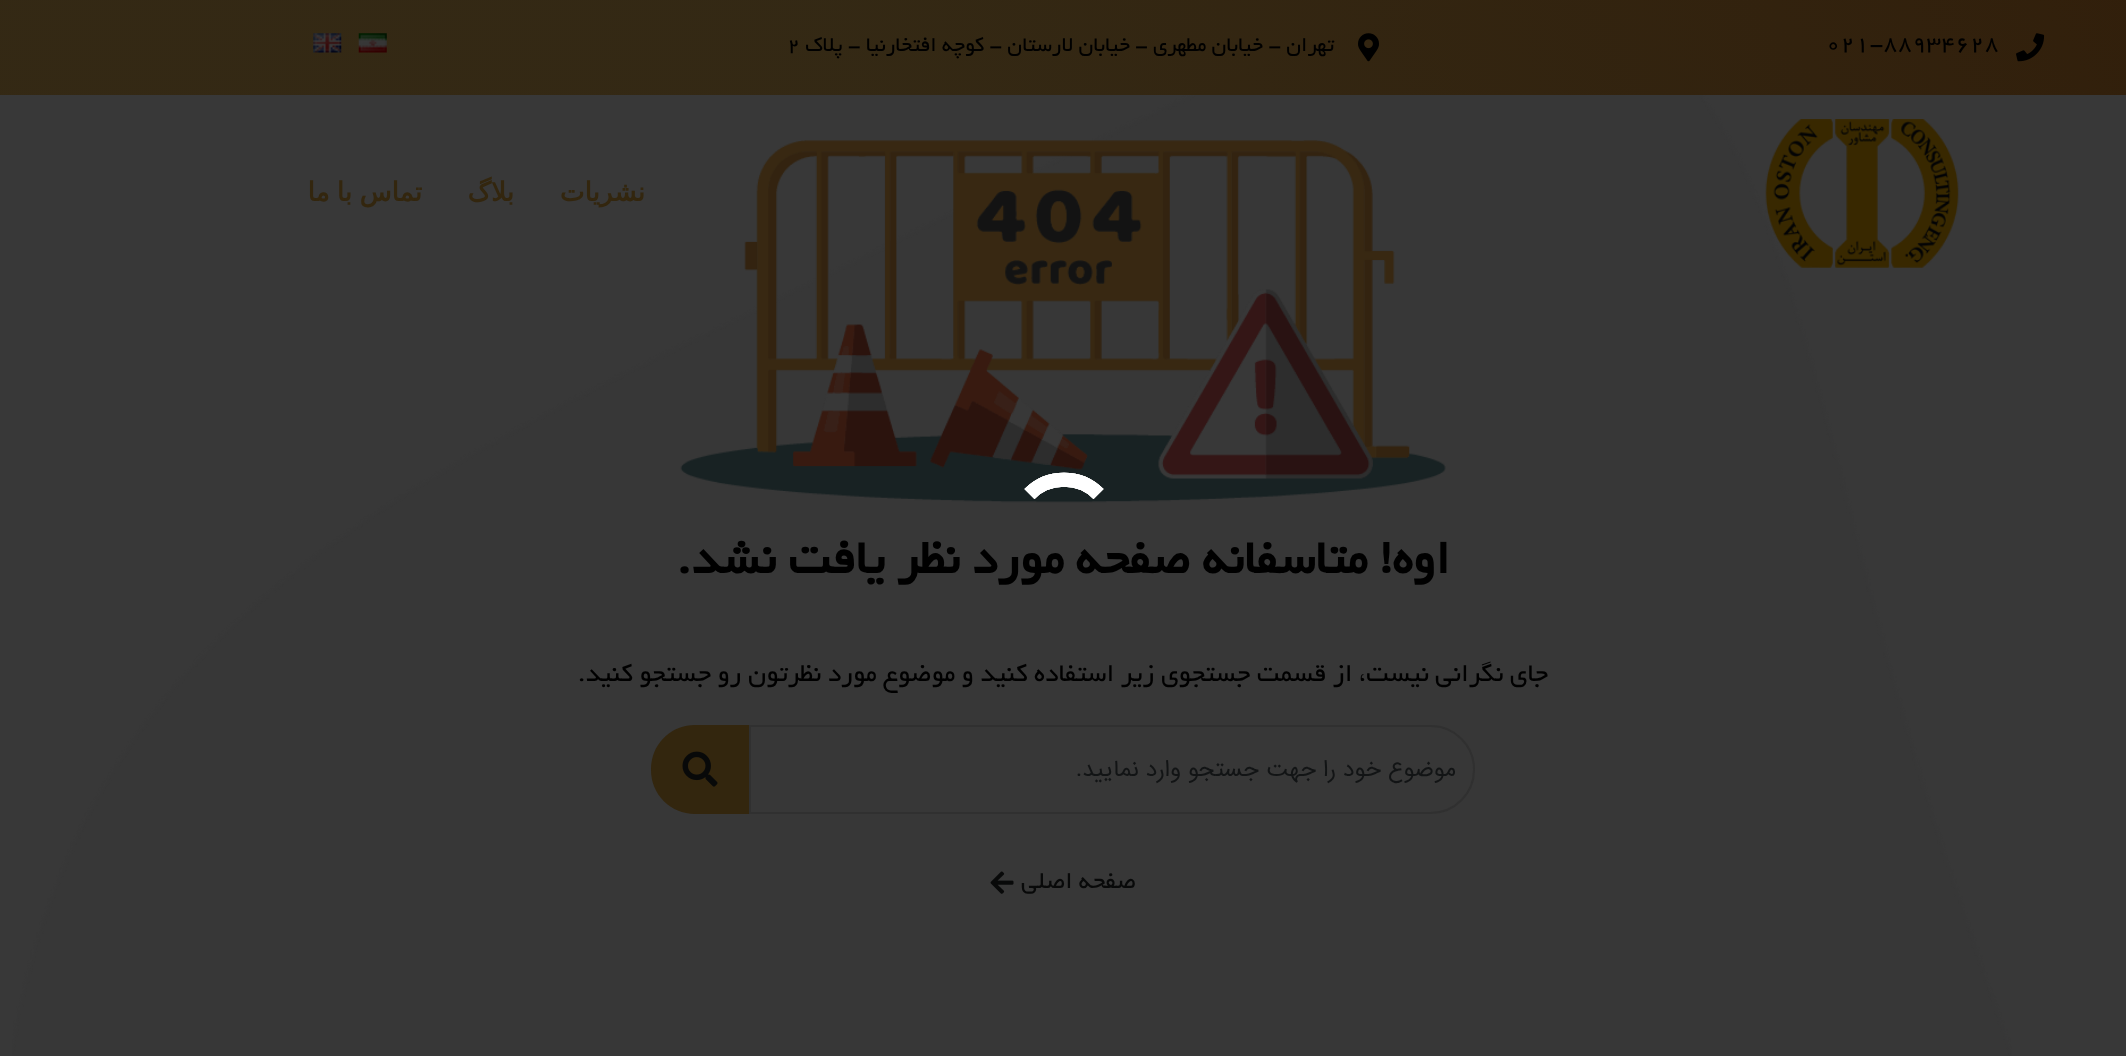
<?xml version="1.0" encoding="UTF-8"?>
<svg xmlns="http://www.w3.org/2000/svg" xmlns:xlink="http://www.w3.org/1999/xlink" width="2126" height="1056">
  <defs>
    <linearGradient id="g1" gradientUnits="userSpaceOnUse" x1="245" y1="519" x2="1881" y2="-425"><stop offset="0.4" stop-color="#33260e" stop-opacity="0.85" /><stop offset="1" stop-color="#311e09" stop-opacity="0.95" /></linearGradient>
  </defs>
  <rect width="100%" height="100%" fill="#383838" />
  <image x="12" y="0" width="2000" height="1056" xlink:href="image6.png" />
  <rect width="2126" height="95" fill="url(#g1)" />
  <image x="2016" y="33" width="29" height="29" xlink:href="image1.png" />
  <image x="1358" y="33" width="21" height="29" xlink:href="image2.png" />
  <image x="358" y="33" width="29" height="20" xlink:href="image3.png" />
  <image x="313" y="33" width="29" height="20" xlink:href="image4.png" />
  <image x="1765" y="119" width="194" height="149" xlink:href="image5.png" />
  <image x="680" y="140" width="766" height="363" xlink:href="image7.png" />
  <path d="M 1029.5 494 c 18.5 -19 50.5 -19 69 0" fill="none" stroke="#ffffff" stroke-width="14" />
  <path d="M 1029.5 494 c 18.5 -19 50.5 -19 69 0" fill="none" stroke="#ffffff" stroke-width="14" />
  <path d="M 1029.5 494 c 18.5 -19 50.5 -19 69 0" fill="none" stroke="#ffffff" stroke-width="14" />
  <path d="M 1029.5 494 c 18.5 -19 50.5 -19 69 0" fill="none" stroke="#ffffff" stroke-width="14" />
  <path d="M 750 726 h 681 c 23.5 0 43 19.5 43 43 v 1 c 0 23.5 -19.5 43 -43 43 h -681 z" fill="none" stroke="#303030" stroke-width="2" />
  <path d="M 695 725 h 54 v 89 h -54 c -24.5 0 -44 -19.5 -44 -44 v -1 c 0 -24.5 19.5 -44 44 -44 z" fill="#33260e" />
  <image x="682" y="751" width="36" height="36" xlink:href="image8.png" />
  <image x="990" y="871" width="24" height="23" xlink:href="image9.png" />
  <text x="1826" y="50" style="font-family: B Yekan; font-size: 24.5px; fill: #000000">021-88934628</text>
  <text x="1334" y="51" style="font-family: B Yekan; font-size: 22.75px; direction: rtl; fill: #000000">تهران - خیابان مطهری - خیابان لارستان - کوچه افتخارنیا - پلاک</text>
  <text x="787" y="51" style="font-family: B Yekan; font-size: 22.75px; fill: #000000">2</text>
  <text x="645" y="201" style="font-family: DejaVu Sans; font-size: 26.25px; font-weight: bold; direction: rtl; fill: #33260e">نشریات</text>
  <text x="514" y="201" style="font-family: DejaVu Sans; font-size: 26.25px; font-weight: bold; direction: rtl; fill: #33260e">بلاگ</text>
  <text x="422" y="201" word-spacing="-1" style="font-family: DejaVu Sans; font-size: 26.25px; font-weight: bold; direction: rtl; fill: #33260e">تماس با ما</text>
  <text x="1450" y="573" style="font-family: B Yekan; font-size: 52.5px; font-weight: bold; direction: rtl; fill: #000000">اوه! متاسفانه صفحه مورد نظر یافت نشد.</text>
  <text x="1548" y="681" style="font-family: B Yekan; font-size: 28px; direction: rtl; fill: #000000">جای نگرانی نیست، از قسمت جستجوی زیر استفاده کنید و موضوع مورد نظرتون رو جستجو کنید.</text>
  <text x="1456" y="776" style="font-family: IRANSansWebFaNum; font-size: 23.3px; direction: rtl; fill: #121415">موضوع خود را جهت جستجو وارد نمایید.</text>
  <text x="1136" y="888" style="font-family: B Yekan; font-size: 26.25px; direction: rtl; fill: #080909">صفحه اصلی</text>
</svg>
